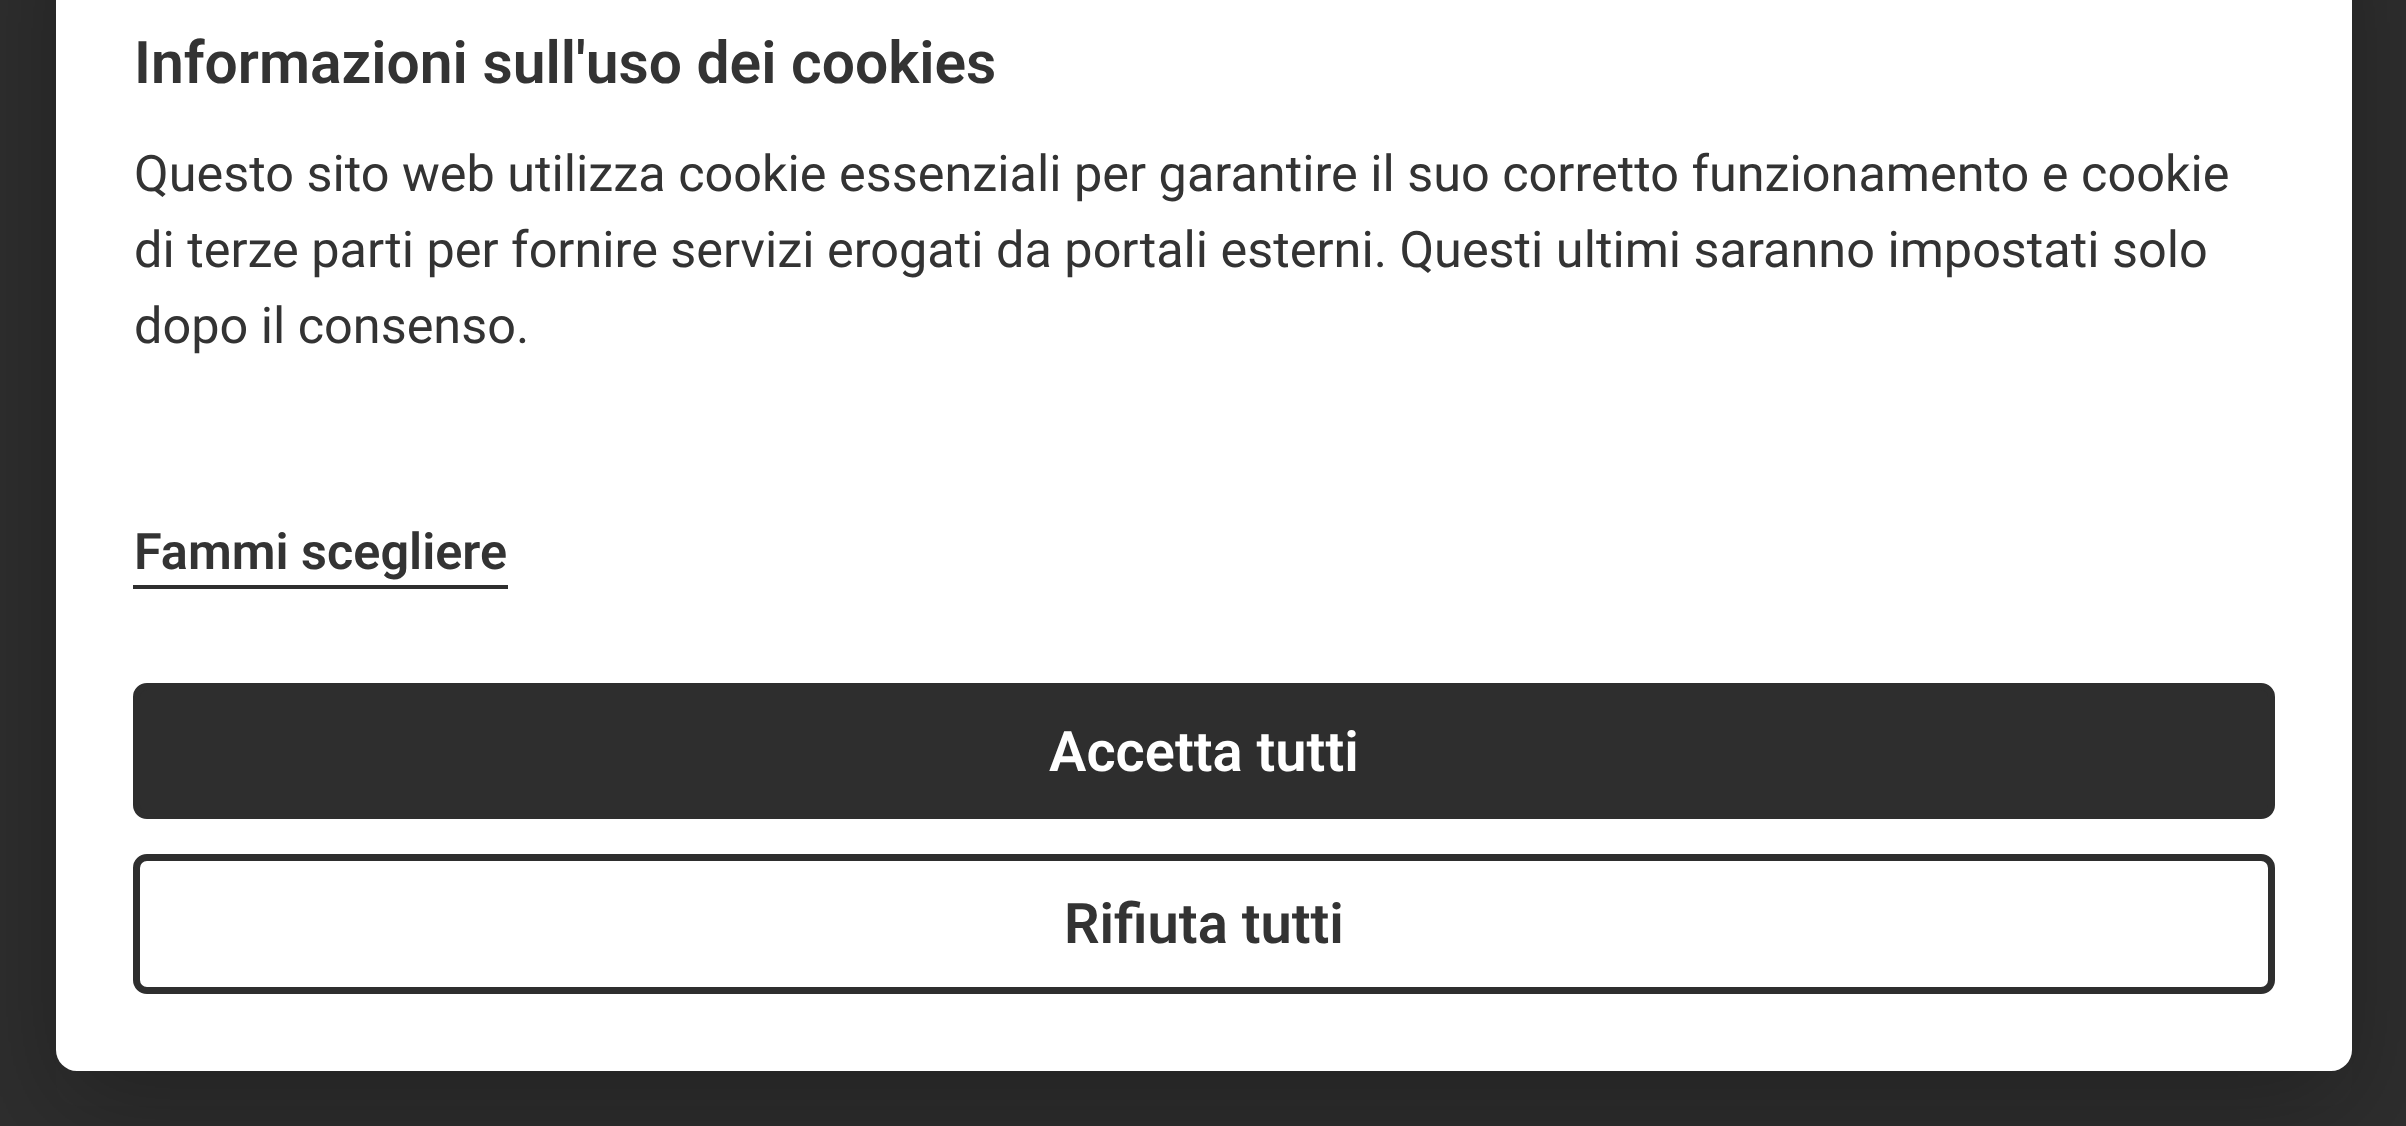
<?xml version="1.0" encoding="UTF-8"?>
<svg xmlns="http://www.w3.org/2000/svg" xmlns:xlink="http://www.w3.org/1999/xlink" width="2406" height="1126">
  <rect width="100%" height="100%" fill="#2e2e2e" />
  <rect x="56" y="-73" width="2296" height="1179" rx="21" fill="#020203" fill-opacity="0.28" filter="blur(52.5px)" />
  <rect x="56" y="-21" width="2296" height="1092" rx="21" fill="#ffffff" />
  <rect x="133" y="585" width="375" height="4" fill="#2e2e2e" />
  <rect x="136.5" y="686.5" width="2135" height="129" rx="10.5" fill="#2e2e2e" stroke="#2e2e2e" stroke-width="7" />
  <rect x="136.5" y="857.5" width="2135" height="133" rx="10.5" fill="none" stroke="#2e2e2e" stroke-width="7" />
  <text x="134" y="83" style="font-family: Roboto; font-size: 58.75px; font-weight: 600; fill: #333333">Informazioni sull'uso dei cookies</text>
  <text x="134" y="191" style="font-family: Roboto; font-size: 50.4px; fill: #333333">Questo sito web utilizza cookie essenziali per garantire il suo corretto funzionamento e cookie</text>
  <text x="134" y="267" style="font-family: Roboto; font-size: 50.4px; fill: #333333">di terze parti per fornire servizi erogati da portali esterni. Questi ultimi saranno impostati solo</text>
  <text x="134" y="343" style="font-family: Roboto; font-size: 50.4px; fill: #333333">dopo il consenso.</text>
  <text x="134" y="569" style="font-family: Roboto; font-size: 50.4px; font-weight: 600; fill: #333333">Fammi scegliere</text>
  <text x="1049" y="771" style="font-family: Roboto; font-size: 56px; font-weight: 600; fill: #ffffff">Accetta tutti</text>
  <text x="1064" y="943" style="font-family: Roboto; font-size: 56px; font-weight: 600; fill: #333333">Rifiuta tutti</text>
</svg>
